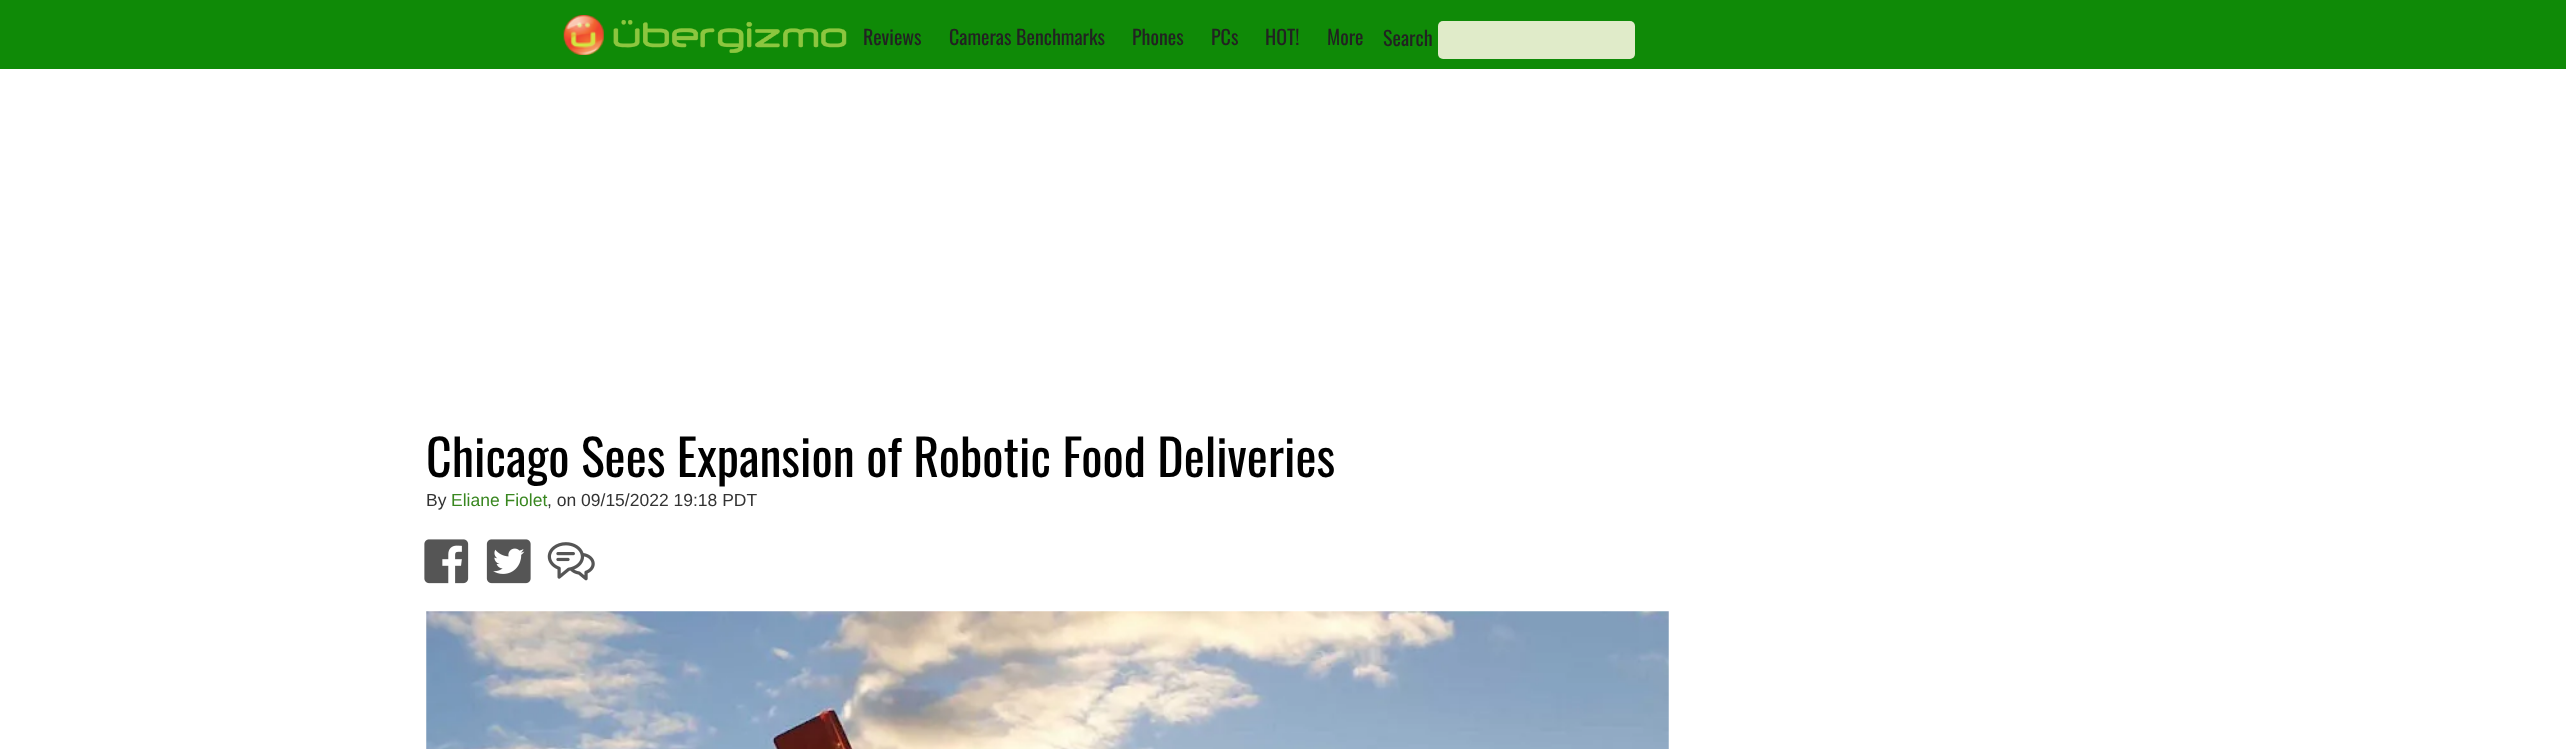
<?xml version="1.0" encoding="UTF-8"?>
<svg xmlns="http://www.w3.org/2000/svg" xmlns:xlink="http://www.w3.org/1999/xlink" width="2566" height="749">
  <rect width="100%" height="100%" fill="#ffffff" />
  <rect width="2566" height="69" fill="#0f8a07" />
  <image x="563" y="15" width="41" height="40" xlink:href="image1.png" />
  <image x="613" y="20" width="234" height="33" xlink:href="image2.png" />
  <rect x="1438" y="21" width="197" height="38" rx="5" fill="#e0ebc9" />
  <image x="424" y="539" width="45" height="45" xlink:href="image3.png" />
  <image x="486" y="539" width="45" height="45" xlink:href="image4.png" />
  <image x="547" y="542" width="48" height="39" xlink:href="image5.png" />
  <image x="426" y="611" width="1243" height="138" xlink:href="image6.png" />
  <text x="863" y="45" style="font-family: Oswald; font-size: 20px; fill: #222222">Reviews</text>
  <text x="949" y="45" style="font-family: Oswald; font-size: 20px; fill: #222222">Cameras Benchmarks</text>
  <text x="1132" y="45" style="font-family: Oswald; font-size: 20px; fill: #222222">Phones</text>
  <text x="1211" y="45" style="font-family: Oswald; font-size: 20px; fill: #222222">PCs</text>
  <text x="1265" y="45" style="font-family: Oswald; font-size: 20px; fill: #222222">HOT!</text>
  <text x="1327" y="45" style="font-family: Oswald; font-size: 20px; fill: #222222">More</text>
  <text x="1383" y="46" style="font-family: Oswald; font-size: 20px; fill: #222222">Search</text>
  <text x="426" y="477" style="font-family: Oswald; font-size: 50px; fill: #000000">Chicago Sees Expansion of Robotic Food Deliveries</text>
  <text x="426" y="506" style="font-family: Liberation Sans; font-size: 17.5px; fill: #333333">By</text>
  <text x="451" y="506" style="font-family: Liberation Sans; font-size: 17.5px; fill: #398720">Eliane Fiolet</text>
  <text x="547" y="506" style="font-family: Liberation Sans; font-size: 17.5px; fill: #333333">, on 09/15/2022 19:18 PDT</text>
</svg>
